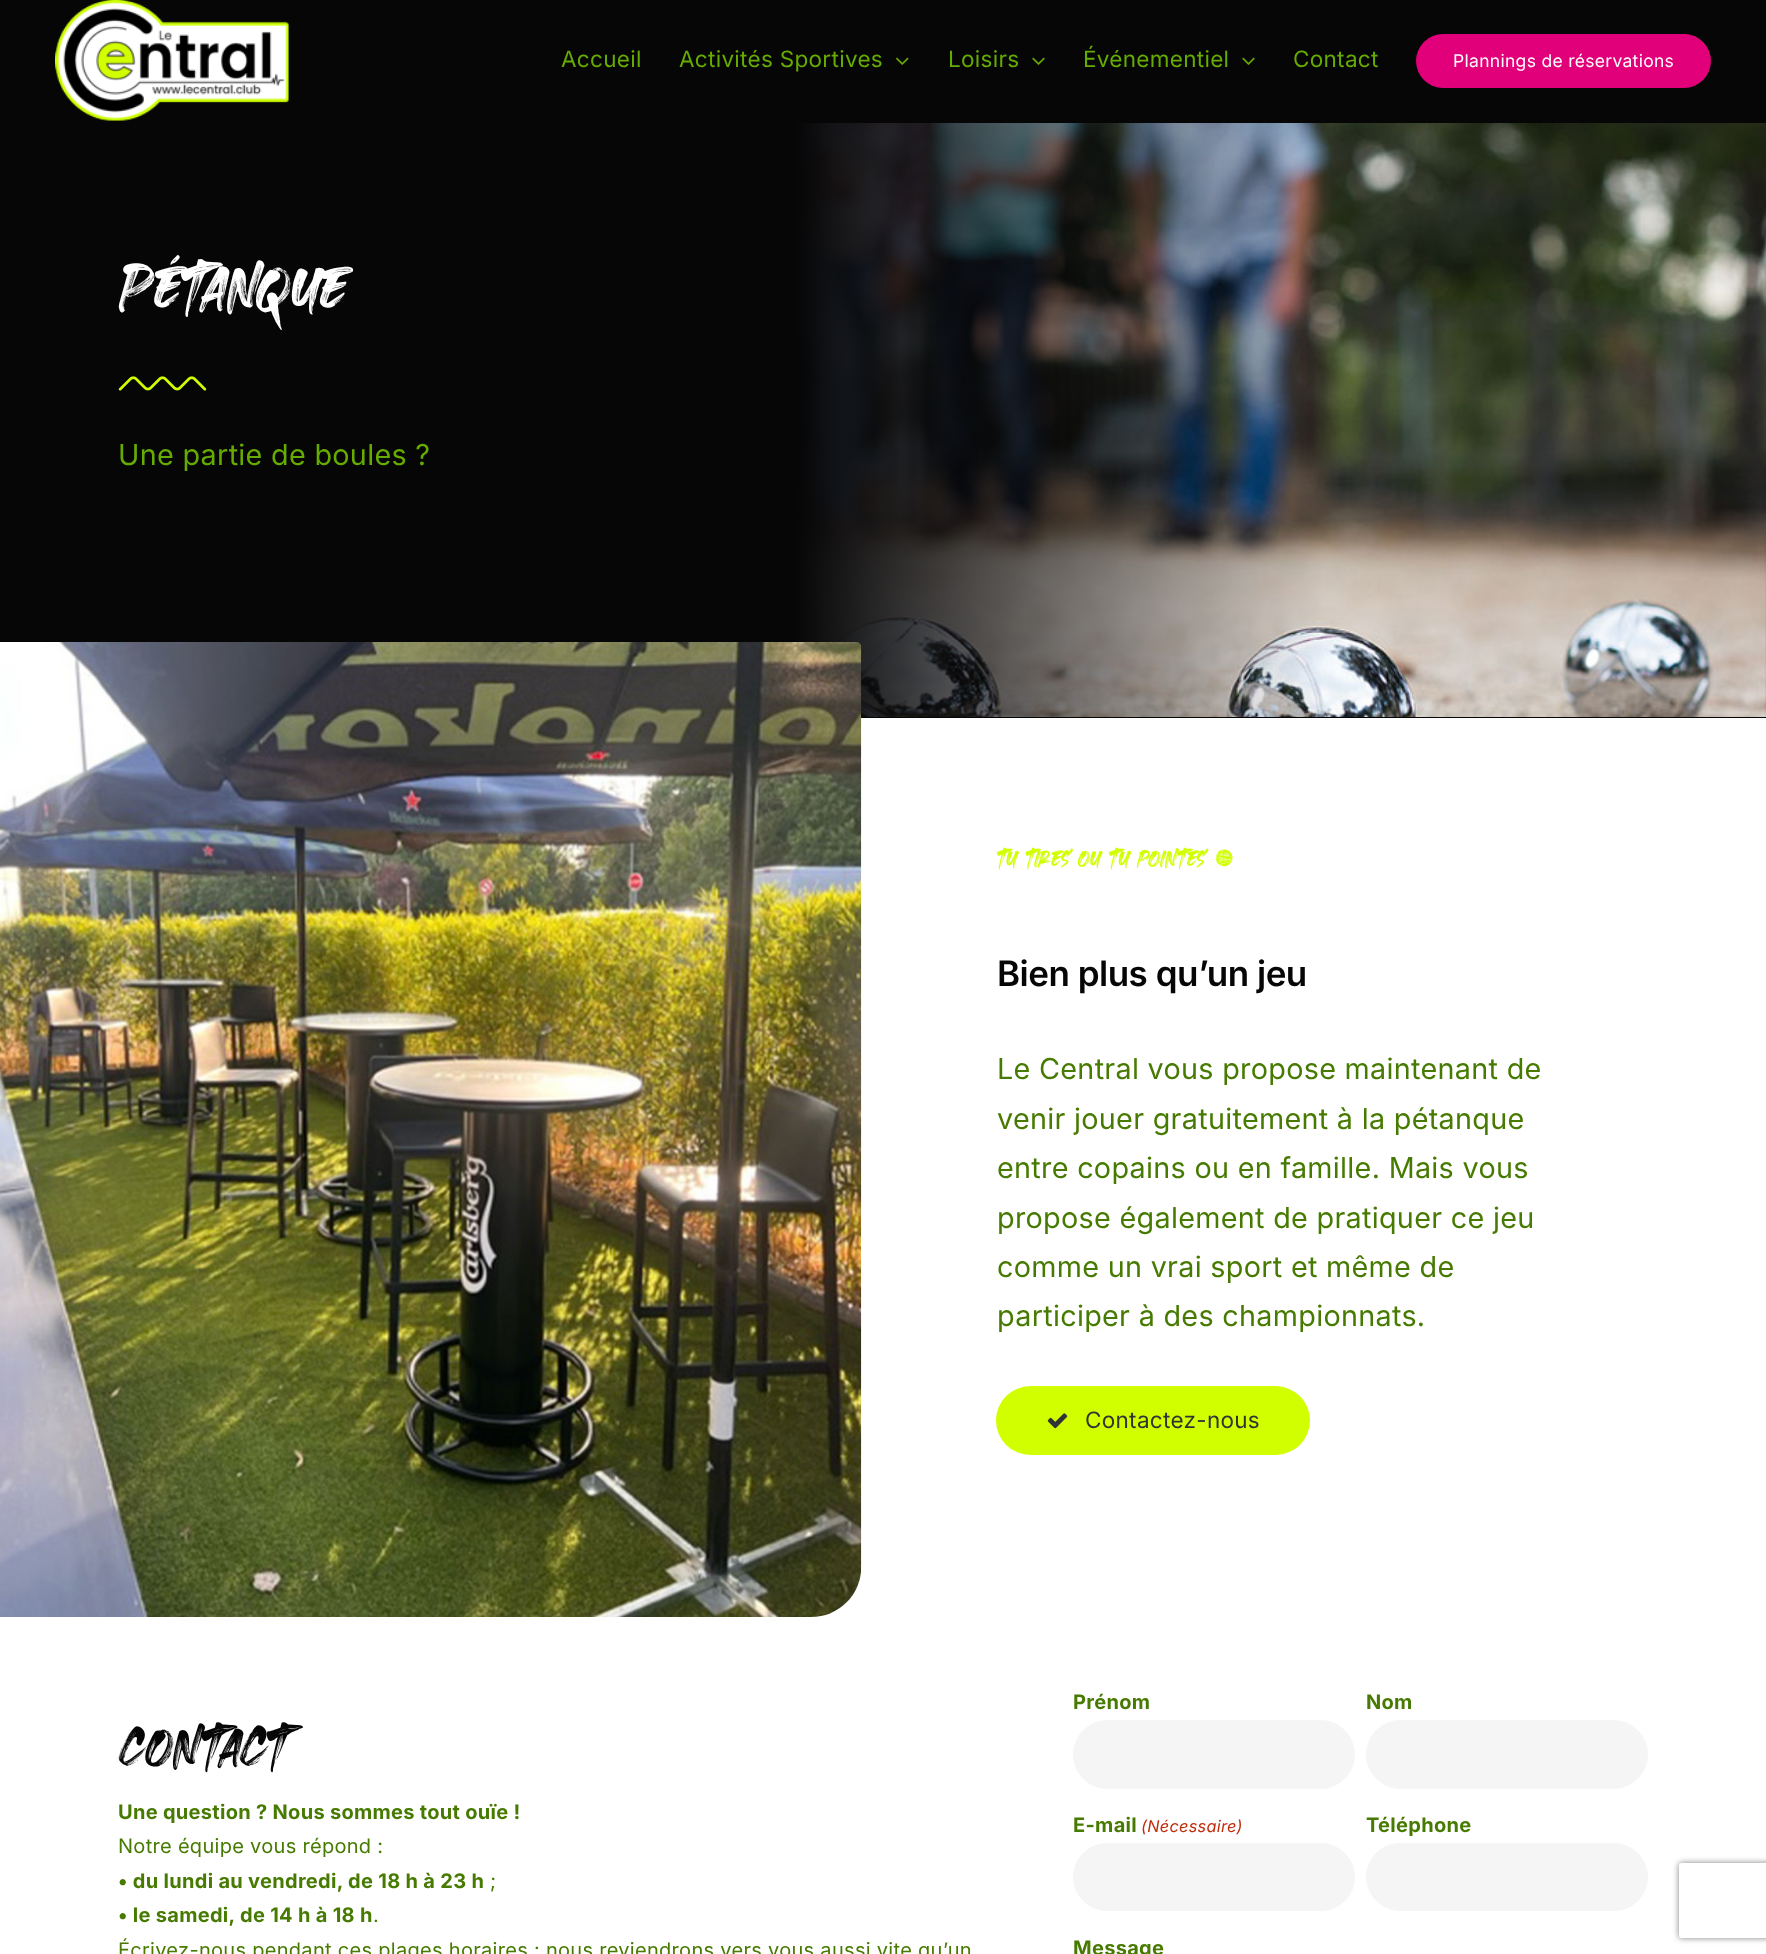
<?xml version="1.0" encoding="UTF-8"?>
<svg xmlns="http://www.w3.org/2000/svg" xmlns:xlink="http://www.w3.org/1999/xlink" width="1766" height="1954">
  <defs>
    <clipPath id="clip1"><path d="M 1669 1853 h 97 v 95 h -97 z m 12.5 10 h 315 c 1.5 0 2.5 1 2.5 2.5 v 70 c 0 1.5 -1 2.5 -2.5 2.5 h -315 c -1.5 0 -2.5 -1 -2.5 -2.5 v -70 c 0 -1.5 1 -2.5 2.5 -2.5 z" clip-rule="evenodd" /></clipPath>
  </defs>
  <rect width="100%" height="100%" fill="#ffffff" />
  <rect width="1766" height="123" fill="#060607" />
  <image x="55" y="0" width="234" height="121" xlink:href="image1.png" />
  <image x="896" y="57" width="13" height="8" xlink:href="image2.png" />
  <image x="1032" y="57" width="13" height="8" xlink:href="image3.png" />
  <image x="1242" y="57" width="13" height="8" xlink:href="image3.png" />
  <rect x="1416" y="34" width="295" height="54" rx="27" fill="#e2007a" />
  <rect x="861" y="717" width="905" height="1" fill="#060607" />
  <image x="0" y="123" width="1766" height="594" xlink:href="image4.png" />
  <image x="118" y="376" width="89" height="15" xlink:href="image5.png" />
  <image x="0" y="642" width="862" height="975" xlink:href="image6.png" />
  <rect x="996" y="1386" width="314" height="69" rx="34.5" fill="#d1ff00" />
  <image x="1047" y="1413" width="21" height="16" xlink:href="image7.png" />
  <rect x="1073.5" y="1720.5" width="281" height="68" rx="34" fill="#f5f5f5" stroke="#f5f5f5" />
  <rect x="1366.5" y="1720.5" width="281" height="68" rx="34" fill="#f5f5f5" stroke="#f5f5f5" />
  <rect x="1073.5" y="1843.5" width="281" height="67" rx="33.5" fill="#f5f5f5" stroke="#f5f5f5" />
  <rect x="1366.5" y="1843.5" width="281" height="67" rx="33.5" fill="#f5f5f5" stroke="#f5f5f5" />
  <g clip-path="url(#clip1)">
    <rect x="1679" y="1863" width="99" height="75" rx="2.5" fill="#808080" filter="blur(3px)" />
  </g>
  <text x="561" y="67" style="font-family: Inter; font-size: 22.5px; letter-spacing: 0.3px; fill: #65ab00">Accueil</text>
  <text x="679" y="67" style="font-family: Inter; font-size: 22.5px; letter-spacing: 0.3px; fill: #65ab00">Activités Sportives</text>
  <text x="948" y="67" style="font-family: Inter; font-size: 22.5px; letter-spacing: 0.3px; fill: #65ab00">Loisirs</text>
  <text x="1083" y="67" style="font-family: Inter; font-size: 22.5px; letter-spacing: 0.3px; fill: #65ab00">Événementiel</text>
  <text x="1293" y="67" style="font-family: Inter; font-size: 22.5px; letter-spacing: 0.3px; fill: #65ab00">Contact</text>
  <text x="1453" y="67" style="font-family: Inter; font-size: 17.5px; letter-spacing: 0.3px; fill: #ffffff">Plannings de réservations</text>
  <text x="118" y="311" style="font-family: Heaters; font-size: 94px; letter-spacing: -1.5px; fill: #ffffff">Pétanque</text>
  <text x="118" y="465" style="font-family: Inter; font-size: 28.75px; letter-spacing: 0.3px; fill: #65ab00">Une partie de boules ?</text>
  <text x="997" y="867" style="font-family: Heaters; font-size: 35px; letter-spacing: -0.5px; fill: #d1ff00">tu tires ou tu pointes ?</text>
  <text x="997" y="986" style="font-family: Inter; font-size: 35px; font-weight: 600; letter-spacing: -0.5px; fill: #060607">Bien plus qu’un jeu</text>
  <text x="997" y="1079" style="font-family: Inter; font-size: 28.75px; letter-spacing: 0.3px; fill: #477a00">Le Central vous propose maintenant de</text>
  <text x="997" y="1129" style="font-family: Inter; font-size: 28.75px; letter-spacing: 0.3px; fill: #477a00">venir jouer gratuitement à la pétanque</text>
  <text x="997" y="1178" style="font-family: Inter; font-size: 28.75px; letter-spacing: 0.3px; fill: #477a00">entre copains ou en famille. Mais vous</text>
  <text x="997" y="1228" style="font-family: Inter; font-size: 28.75px; letter-spacing: 0.3px; fill: #477a00">propose également de pratiquer ce jeu</text>
  <text x="997" y="1277" style="font-family: Inter; font-size: 28.75px; letter-spacing: 0.3px; fill: #477a00">comme un vrai sport et même de</text>
  <text x="997" y="1326" style="font-family: Inter; font-size: 28.75px; letter-spacing: 0.3px; fill: #477a00">participer à des championnats.</text>
  <text x="1085" y="1428" style="font-family: Inter; font-size: 22.5px; letter-spacing: 0.3px; fill: #333333">Contactez-nous</text>
  <text x="118" y="1767" style="font-family: Heaters; font-size: 81px; letter-spacing: -1.25px; fill: #060607">Contact</text>
  <text x="118" y="1819" style="font-family: Inter; font-size: 20px; font-weight: bold; letter-spacing: 0.3px; fill: #477a00">Une question ? Nous sommes tout ouïe !</text>
  <text x="118" y="1853" style="font-family: Inter; font-size: 20px; letter-spacing: 0.3px; fill: #477a00">Notre équipe vous répond :</text>
  <text x="118" y="1888" style="font-family: Inter; font-size: 20px; font-weight: bold; letter-spacing: 0.3px; fill: #477a00">• du lundi au vendredi, de 18 h à 23 h</text>
  <text x="490" y="1888" style="font-family: Inter; font-size: 20px; letter-spacing: 0.3px; fill: #477a00">;</text>
  <text x="118" y="1922" style="font-family: Inter; font-size: 20px; font-weight: bold; letter-spacing: 0.3px; fill: #477a00">• le samedi, de 14 h à 18 h</text>
  <text x="373" y="1922" style="font-family: Inter; font-size: 20px; letter-spacing: 0.3px; fill: #477a00">.</text>
  <text x="118" y="1957" style="font-family: Inter; font-size: 20px; letter-spacing: 0.3px; fill: #477a00">Écrivez-nous pendant ces plages horaires : nous reviendrons vers vous aussi vite qu’un</text>
  <text x="1073" y="1709" style="font-family: Inter; font-size: 20px; font-weight: bold; letter-spacing: 0.3px; fill: #477a00">Prénom</text>
  <text x="1366" y="1709" style="font-family: Inter; font-size: 20px; font-weight: bold; letter-spacing: 0.3px; fill: #477a00">Nom</text>
  <text x="1073" y="1832" style="font-family: Inter; font-size: 20px; font-weight: bold; letter-spacing: 0.3px; fill: #477a00">E-mail</text>
  <text x="1141" y="1832" style="font-family: Inter; font-size: 16.25px; font-style: italic; letter-spacing: 0.3px; fill: #c02b0a">(Nécessaire)</text>
  <text x="1366" y="1832" style="font-family: Inter; font-size: 20px; font-weight: bold; letter-spacing: 0.3px; fill: #477a00">Téléphone</text>
  <text x="1073" y="1955" style="font-family: Inter; font-size: 20px; font-weight: bold; letter-spacing: 0.3px; fill: #477a00">Message</text>
</svg>
